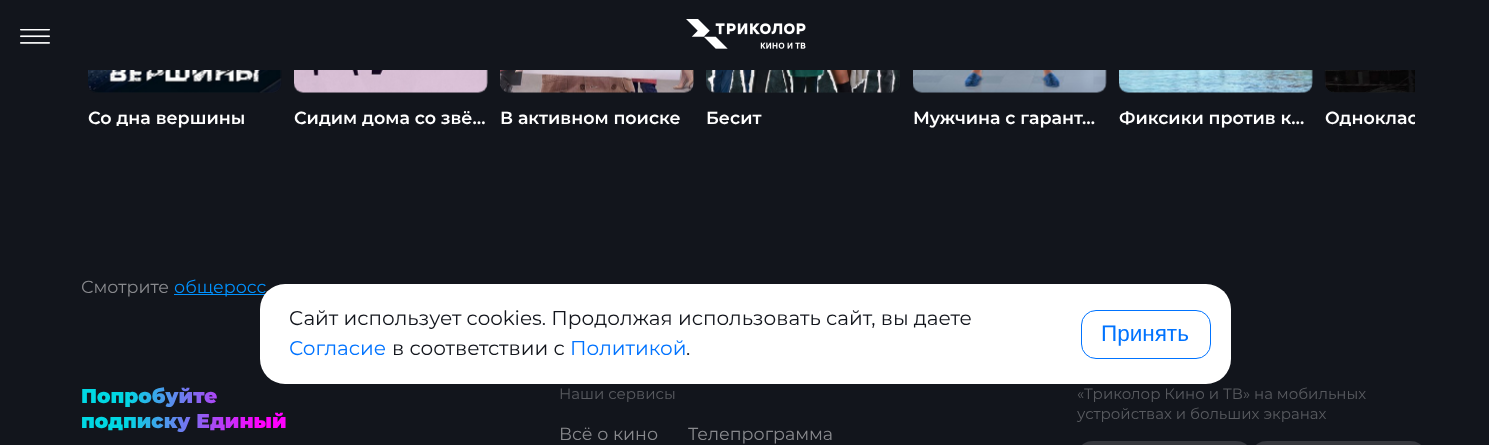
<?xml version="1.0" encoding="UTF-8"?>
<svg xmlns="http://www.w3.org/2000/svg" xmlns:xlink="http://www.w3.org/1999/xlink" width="1489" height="445">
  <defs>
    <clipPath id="clip1"><rect x="81" width="1334" height="136" /></clipPath>
    <clipPath id="clip2"><rect x="1319" y="103" width="96" height="30" /></clipPath>
    <linearGradient id="g1" gradientUnits="userSpaceOnUse" x1="81" y1="396" x2="306" y2="396"><stop offset="0.2" stop-color="#00d8e3" /><stop offset="0.79" stop-color="#ff00ff" /></linearGradient>
    <linearGradient id="g2" gradientUnits="userSpaceOnUse" x1="81" y1="421" x2="306" y2="421"><stop offset="0.2" stop-color="#00d8e3" /><stop offset="0.79" stop-color="#ff00ff" /></linearGradient>
  </defs>
  <rect width="100%" height="100%" fill="#12151c" />
  <path d="M 98 -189 h 173 c 6 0 10 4 10 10 v 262 c 0 4 -3 8 -7 9 h -179 c -4 -1 -7 -5 -7 -9 v -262 c 0 -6 4 -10 10 -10 z" fill="#1e2127" />
  <path d="M 304 -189 h 174 c 4 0 8 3 10 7 v 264 l -1 5 c -1 3 -3 5 -6 5 h -180 c -4 -1 -7 -5 -7 -9 v -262 c 0 -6 4 -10 10 -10 z" fill="#1e2127" />
  <path d="M 510 -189 c -6 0 -10 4 -10 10 v 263 c 0 4 3 7 7 8 h 180 c 3 0 5 -3 6 -6 l 1 -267 c -1 -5 -5 -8 -10 -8 z" fill="#1e2127" />
  <path d="M 716 -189 h 174 c 6 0 10 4 10 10 v 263 c 0 4 -3 7 -7 8 h -180 c -3 0 -5 -3 -6 -6 l -1 -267 c 1 -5 5 -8 10 -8 z" fill="#1e2127" />
  <path d="M 923 -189 h 173 c 6 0 10 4 10 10 v 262 c 0 4 -3 8 -7 9 h -179 c -4 -1 -7 -5 -7 -9 v -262 c 0 -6 4 -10 10 -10 z" fill="#1e2127" />
  <g clip-path="url(#clip1)">
    <path d="M 1335 -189 c -6 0 -10 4 -10 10 v 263 c 0 4 3 7 7 8 h 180 c 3 0 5 -3 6 -6 l 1 -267 c -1 -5 -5 -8 -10 -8 z" fill="#1e2127" />
  </g>
  <rect x="88" width="1327" height="70" fill="#12151c" />
  <image x="20" y="29" width="30" height="15" xlink:href="image1.png" />
  <image x="686" y="19" width="120" height="30" xlink:href="image2.png" />
  <image x="90" y="89" width="189" height="4" xlink:href="image3.png" />
  <image x="88" y="70" width="194" height="23" xlink:href="image4.png" />
  <image x="296" y="89" width="185" height="4" xlink:href="image5.png" />
  <image x="294" y="70" width="194" height="23" xlink:href="image6.png" />
  <image x="505" y="70" width="189" height="23" xlink:href="image7.png" />
  <image x="500" y="70" width="194" height="23" xlink:href="image8.png" />
  <image x="706" y="83" width="189" height="10" xlink:href="image9.png" />
  <image x="706" y="70" width="195" height="23" xlink:href="image10.png" />
  <image x="915" y="89" width="189" height="4" xlink:href="image3.png" />
  <image x="913" y="70" width="194" height="23" xlink:href="image11.png" />
  <image x="1121" y="70" width="192" height="23" xlink:href="image13.png" />
  <image x="1119" y="70" width="194" height="23" xlink:href="image12.png" />
  <image x="1330" y="91" width="85" height="2" xlink:href="image14.png" />
  <image x="1324" y="70" width="91" height="23" xlink:href="image15.png" />
  <rect x="174" y="294" width="91" height="1" fill="#0092ff" />
  <rect x="1080" y="441" width="169" height="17" rx="13" fill="#36383e" />
  <rect x="1254" y="441" width="169" height="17" rx="13" fill="#36383e" />
  <text x="88" y="124" style="font-family: Montserrat; font-size: 17.5px; font-weight: 600; fill: #ffffff">Со дна вершины</text>
  <text x="294" y="124" style="font-family: Montserrat; font-size: 17.5px; font-weight: 600; fill: #ffffff">Сидим дома со звё…</text>
  <text x="500" y="124" style="font-family: Montserrat; font-size: 17.5px; font-weight: 600; fill: #ffffff">В активном поиске</text>
  <text x="706" y="124" style="font-family: Montserrat; font-size: 17.5px; font-weight: 600; fill: #ffffff">Бесит</text>
  <text x="913" y="124" style="font-family: Montserrat; font-size: 17.5px; font-weight: 600; fill: #ffffff">Мужчина с гарант…</text>
  <text x="1119" y="124" style="font-family: Montserrat; font-size: 17.5px; font-weight: 600; fill: #ffffff">Фиксики против к…</text>
  <g clip-path="url(#clip2)">
    <text x="1325" y="124" style="font-family: Montserrat; font-size: 17.5px; font-weight: 600; fill: #ffffff">Одноклас</text>
  </g>
  <text x="81" y="293" style="font-family: Montserrat; font-size: 17.5px; fill: #898a8e">Смотрите</text>
  <text x="174" y="293" style="font-family: Montserrat; font-size: 17.5px; fill: #0092ff">общеросс</text>
  <text x="81" y="403" style="font-family: Montserrat; font-size: 20px; font-weight: 900; fill: url(#g1)">Попробуйте</text>
  <text x="81" y="428" style="font-family: Montserrat; font-size: 20px; font-weight: 900; fill: url(#g2)">подписку Единый</text>
  <text x="559" y="399" style="font-family: Montserrat; font-size: 15px; fill: #595b60">Наши сервисы</text>
  <text x="559" y="440" style="font-family: Montserrat; font-size: 17.5px; fill: #898a8e">Всё о кино</text>
  <text x="688" y="440" style="font-family: Montserrat; font-size: 17.5px; fill: #898a8e">Телепрограмма</text>
  <text x="1077" y="399" style="font-family: Montserrat; font-size: 15px; fill: #595b60">«Триколор Кино и ТВ» на мобильных</text>
  <text x="1077" y="419" style="font-family: Montserrat; font-size: 15px; fill: #595b60">устройствах и больших экранах</text>
  <rect x="260" y="284" width="971" height="100" rx="25" fill="#ffffff" />
  <text x="289" y="325" style="font-family: Montserrat; font-size: 20px; fill: #12151c">Cайт использует cookies. Продолжая использовать сайт, вы даете</text>
  <text x="289" y="355" style="font-family: Montserrat; font-size: 20px; fill: #0073ff">Согласие</text>
  <text x="392" y="355" style="font-family: Montserrat; font-size: 20px; fill: #12151c">в соответствии с</text>
  <text x="570" y="355" style="font-family: Montserrat; font-size: 20px; fill: #0073ff">Политикой</text>
  <text x="686" y="355" style="font-family: Montserrat; font-size: 20px; fill: #12151c">.</text>
  <rect x="1081.5" y="310.5" width="129" height="48" rx="14.5" fill="none" stroke="#0073ff" />
  <text x="1101" y="341" style="font-family: Liberation Sans; font-size: 22.5px; fill: #0073ff">Принять</text>
</svg>
